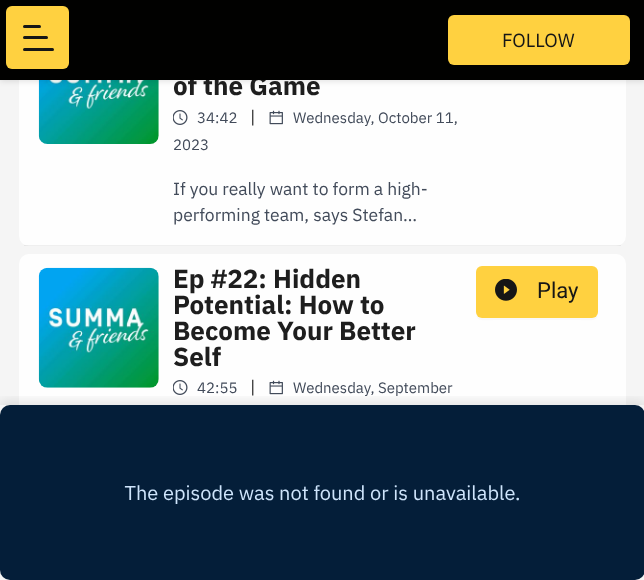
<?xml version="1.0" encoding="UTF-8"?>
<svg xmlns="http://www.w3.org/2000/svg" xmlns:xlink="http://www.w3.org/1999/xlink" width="644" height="580">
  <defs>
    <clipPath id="clip1"><rect x="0" y="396" width="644" height="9" /></clipPath>
  </defs>
  <rect width="100%" height="100%" fill="#f5f5f5" />
  <rect x="19" y="10" width="607" height="236" rx="10" fill="#fefefe" />
  <image x="38" y="80" width="121" height="64" xlink:href="image1.png" />
  <rect y="1" width="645" height="80" fill="#000000" fill-opacity="0.12" filter="blur(3px)" />
  <rect x="24" y="245" width="597" height="1" fill="#050505" fill-opacity="0.06" />
  <image x="269" y="110" width="14" height="15" xlink:href="image2.png" />
  <image x="173" y="110" width="15" height="15" xlink:href="image3.png" />
  <rect x="19" y="254" width="607" height="262" rx="10" fill="#fefefe" />
  <image x="38" y="267" width="121" height="121" xlink:href="image4.png" />
  <image x="173" y="380" width="15" height="15" xlink:href="image3.png" />
  <image x="269" y="380" width="14" height="15" xlink:href="image2.png" />
  <path d="M 476 273 v 28 c 0 23 -1 19 24 19 h 74 c 25 0 24 4 24 -19 v -19 c 0 -2 1 -7 0 -9 v 38 c 0 4 -3 7 -7 7 h -109 c -3 0 -6 -3 -6 -7 z" fill="#f9f9f9" />
  <rect x="476" y="266" width="122" height="52" rx="6" fill="#ffd140" />
  <image x="495" y="279" width="22" height="22" xlink:href="image5.png" />
  <g clip-path="url(#clip1)">
    <rect y="401" width="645" height="175" fill="#000000" fill-opacity="0.1" filter="blur(6px)" />
  </g>
  <image x="0" y="405" width="644" height="175" xlink:href="image6.png" />
  <text x="173" y="95" style="font-family: IBM Plex Sans; font-size: 26px; font-weight: bold; fill: #1e1e1e">of the Game</text>
  <rect width="644" height="80" fill="#010100" />
  <rect x="448" y="15" width="182" height="50" rx="6" fill="#ffd140" />
  <text x="502" y="47" style="font-family: IBM Plex Sans; font-size: 19px; fill: #161616">FOLLOW</text>
  <rect x="6" y="6" width="63" height="63" rx="6" fill="#ffd140" />
  <rect x="23" y="48" width="31" height="3" rx="1.5" fill="#161616" />
  <rect x="23" y="36" width="25" height="3" rx="1.5" fill="#161616" />
  <rect x="23" y="25" width="18" height="3" rx="1.5" fill="#161616" />
  <text x="250" y="123" style="font-family: IBM Plex Sans; font-size: 17.5px; fill: #1e1e1e">|</text>
  <text x="293" y="123" style="font-family: IBM Plex Sans; font-size: 15px; fill: #424b5a">Wednesday, October 11,</text>
  <text x="173" y="150" style="font-family: IBM Plex Sans; font-size: 15px; fill: #424b5a">2023</text>
  <text x="197" y="123" style="font-family: IBM Plex Sans; font-size: 15px; fill: #424b5a">34:42</text>
  <text x="173" y="195" style="font-family: IBM Plex Sans; font-size: 17.5px; fill: #424b5a">If you really want to form a high-</text>
  <text x="173" y="221" style="font-family: IBM Plex Sans; font-size: 17.5px; fill: #424b5a">performing team, says Stefan…</text>
  <text x="173" y="288" style="font-family: IBM Plex Sans; font-size: 26px; font-weight: bold; fill: #1e1e1e">Ep #22: Hidden</text>
  <text x="173" y="314" style="font-family: IBM Plex Sans; font-size: 26px; font-weight: bold; fill: #1e1e1e">Potential: How to</text>
  <text x="173" y="340" style="font-family: IBM Plex Sans; font-size: 26px; font-weight: bold; fill: #1e1e1e">Become Your Better</text>
  <text x="173" y="366" style="font-family: IBM Plex Sans; font-size: 26px; font-weight: bold; fill: #1e1e1e">Self</text>
  <text x="197" y="393" style="font-family: IBM Plex Sans; font-size: 15px; fill: #424b5a">42:55</text>
  <text x="250" y="393" style="font-family: IBM Plex Sans; font-size: 17.5px; fill: #1e1e1e">|</text>
  <text x="293" y="393" style="font-family: IBM Plex Sans; font-size: 15px; fill: #424b5a">Wednesday, September</text>
  <text x="537" y="298" style="font-family: Roboto; font-size: 22px; fill: #161616">Play</text>
</svg>
